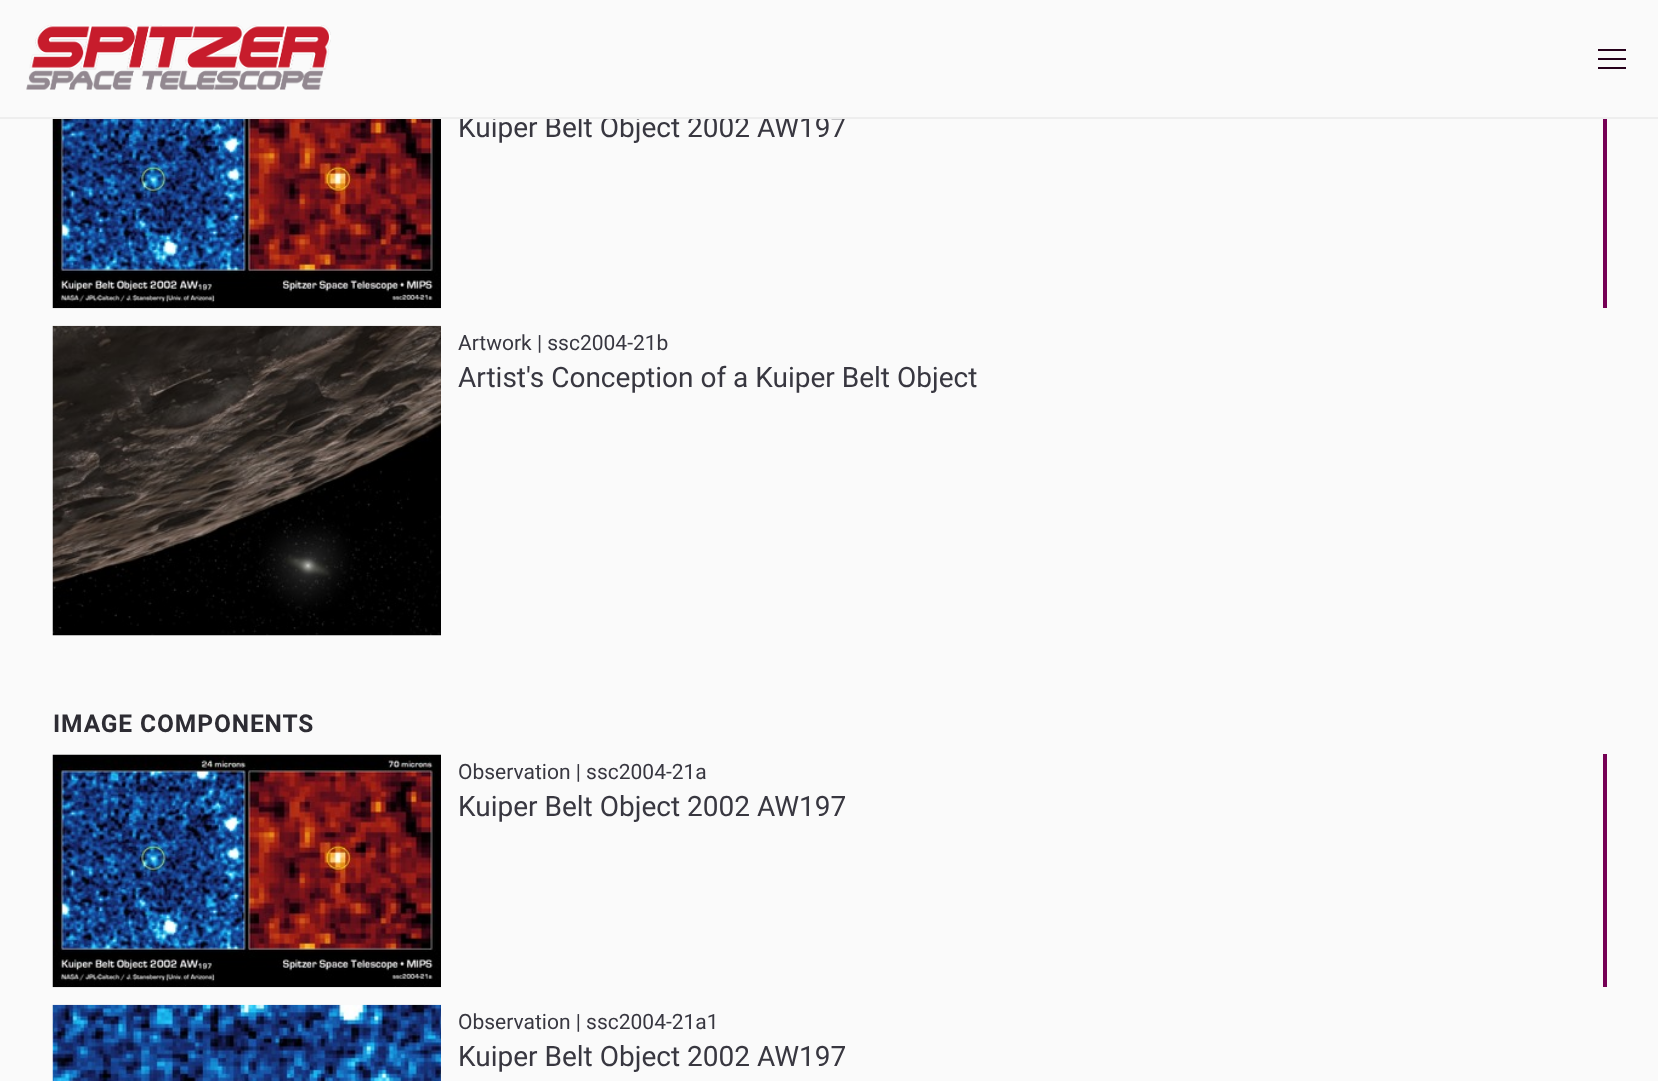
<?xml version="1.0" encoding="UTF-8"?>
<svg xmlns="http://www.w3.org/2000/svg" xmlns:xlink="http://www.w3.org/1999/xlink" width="1658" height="1081">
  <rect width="100%" height="100%" fill="#fafafa" />
  <image x="26" y="25" width="305" height="65" xlink:href="image1.png" />
  <rect x="1598" y="49" width="28" height="2" fill="#26001b" />
  <rect x="1598" y="58" width="28" height="2" fill="#26001b" />
  <rect x="1598" y="67" width="28" height="2" fill="#26001b" />
  <rect x="1603" y="119" width="4" height="189" fill="#750054" />
  <image x="52" y="119" width="389" height="190" xlink:href="image2.png" />
  <image x="52" y="325" width="389" height="311" xlink:href="image3.png" />
  <rect x="1603" y="754" width="4" height="233" fill="#750054" />
  <image x="52" y="754" width="389" height="234" xlink:href="image4.png" />
  <image x="52" y="1004" width="389" height="77" xlink:href="image5.png" />
  <text x="458" y="137" style="font-family: Roboto; font-size: 28px; fill: #383740">Kuiper Belt Object 2002 AW197</text>
  <rect y="117" width="1658" height="2" fill="#eeeeee" />
  <rect x="493" y="116" width="331" height="1" fill="#fafafa" />
  <text x="458" y="350" style="font-family: Roboto; font-size: 21px; fill: #383740">Artwork | ssc2004-21b</text>
  <text x="458" y="387" style="font-family: Roboto; font-size: 28px; fill: #383740">Artist's Conception of a Kuiper Belt Object</text>
  <text x="53" y="732" style="font-family: Roboto; font-size: 24.5px; font-weight: bold; letter-spacing: 0.9px; fill: #2d2c33">IMAGE COMPONENTS</text>
  <text x="458" y="779" style="font-family: Roboto; font-size: 21px; fill: #383740">Observation | ssc2004-21a</text>
  <text x="458" y="816" style="font-family: Roboto; font-size: 28px; fill: #383740">Kuiper Belt Object 2002 AW197</text>
  <text x="458" y="1029" style="font-family: Roboto; font-size: 21px; fill: #383740">Observation | ssc2004-21a1</text>
  <text x="458" y="1066" style="font-family: Roboto; font-size: 28px; fill: #383740">Kuiper Belt Object 2002 AW197</text>
</svg>
